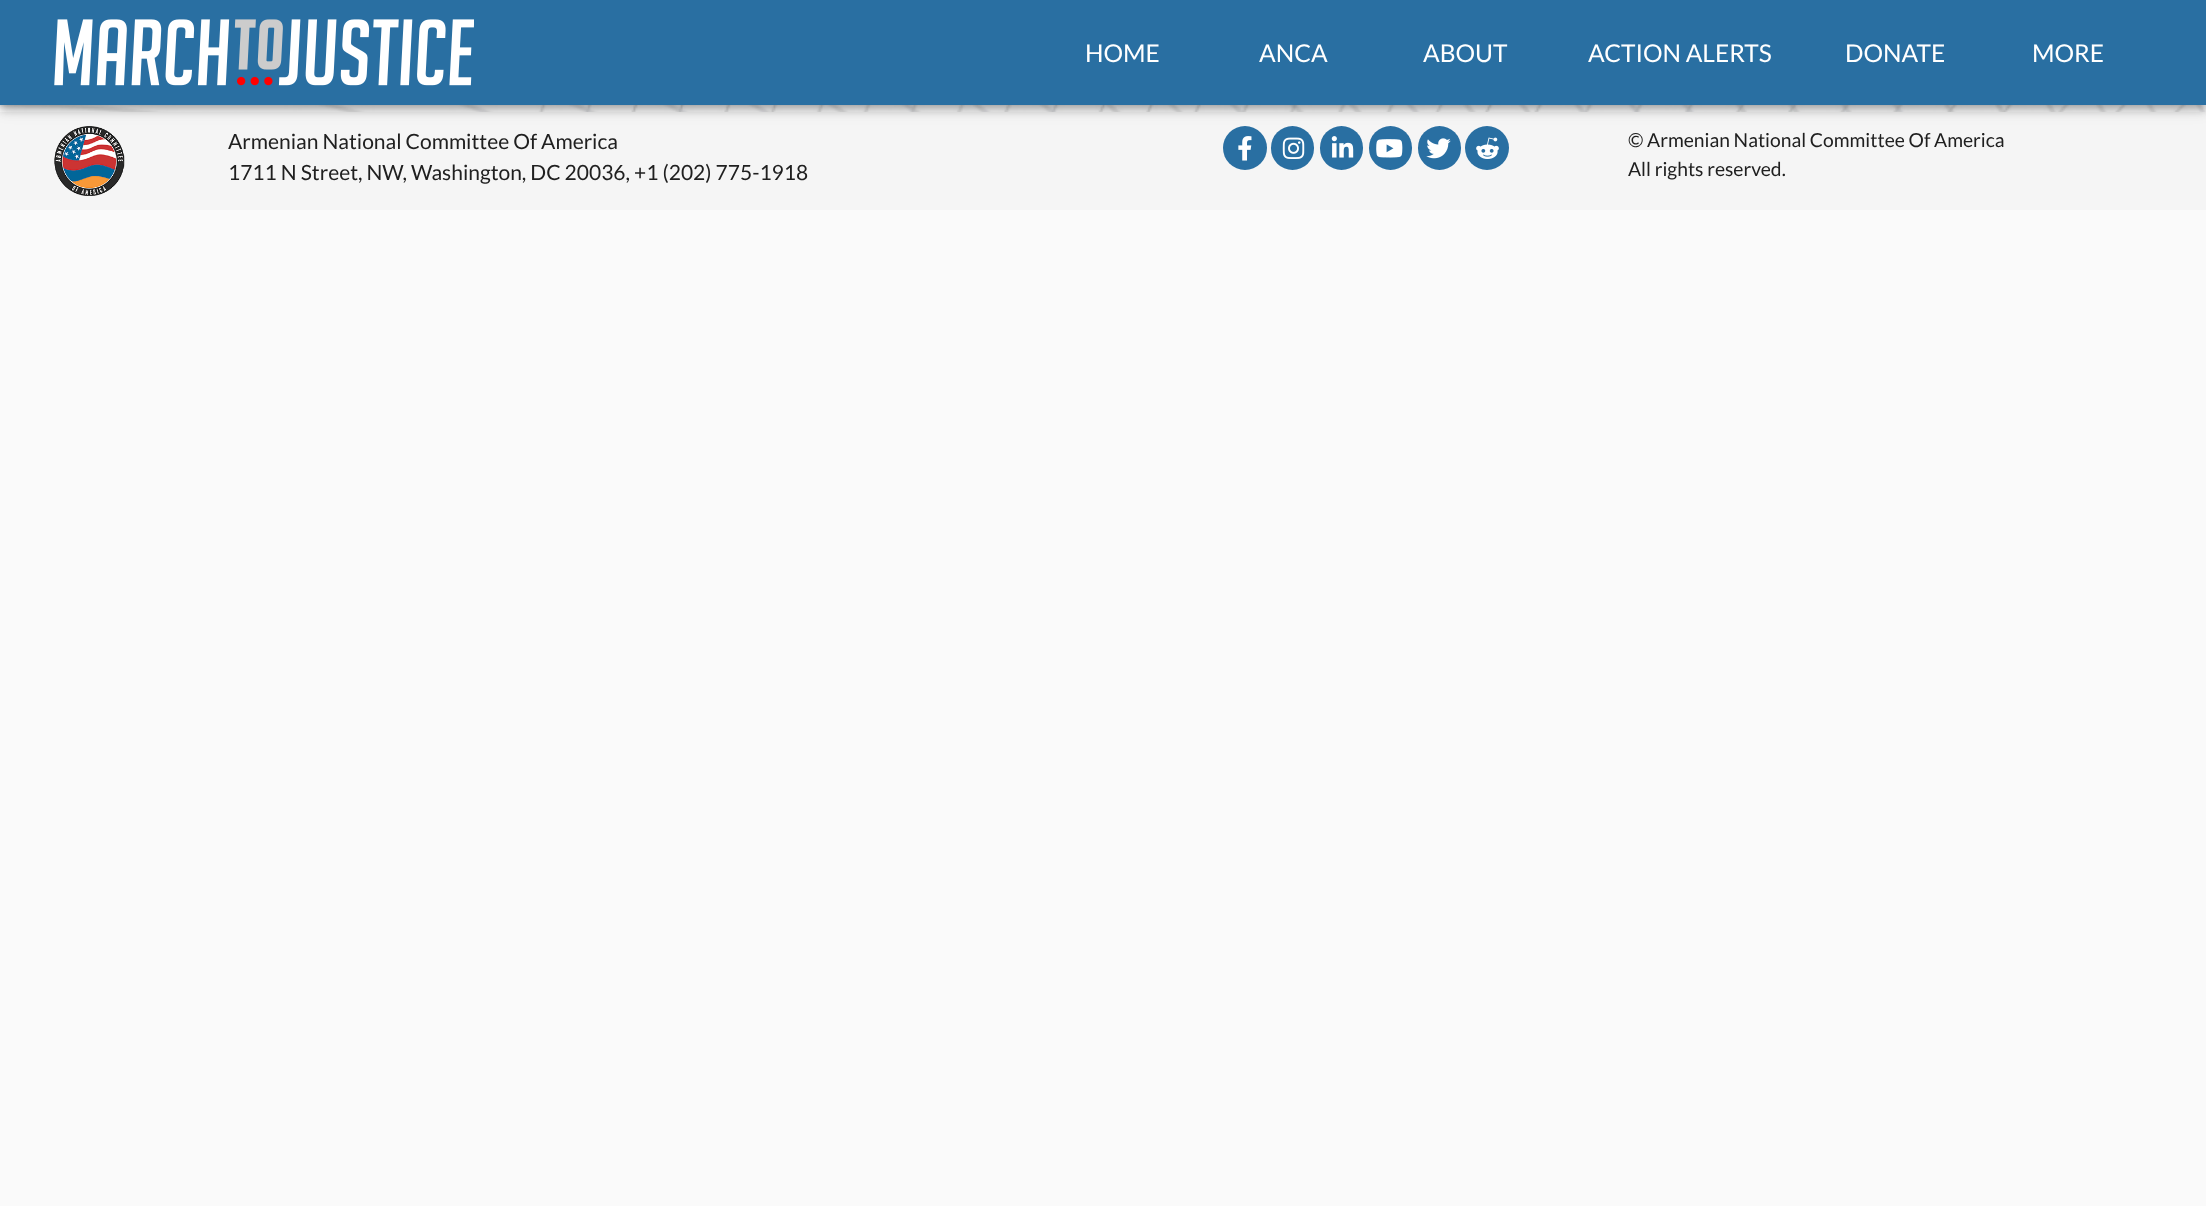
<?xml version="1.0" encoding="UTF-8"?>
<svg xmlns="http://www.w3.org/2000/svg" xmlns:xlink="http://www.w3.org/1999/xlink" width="2206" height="1206">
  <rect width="100%" height="100%" fill="#fafafa" />
  <image x="0" y="105" width="2206" height="7" xlink:href="image2.png" />
  <rect y="112" width="2206" height="98" fill="#f5f5f5" />
  <image x="54" y="126" width="71" height="70" xlink:href="image3.png" />
  <circle cx="1245" cy="148" r="22" fill="#296fa2" />
  <rect x="1271" y="126" width="43" height="44" rx="21.5" fill="#296fa2" />
  <rect x="1320" y="126" width="43" height="44" rx="21.5" fill="#296fa2" />
  <rect x="1369" y="126" width="43" height="44" rx="21.5" fill="#296fa2" />
  <rect x="1418" y="126" width="43" height="44" rx="21.5" fill="#296fa2" />
  <circle cx="1487" cy="148" r="22" fill="#296fa2" />
  <rect y="2" width="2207" height="105" fill="#000000" fill-opacity="0.12" filter="blur(9px)" />
  <rect y="7" width="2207" height="105" fill="#000000" fill-opacity="0.14" filter="blur(4.5px)" />
  <rect x="2" y="5" width="2203" height="102" fill="#000000" fill-opacity="0.2" filter="blur(3.5px)" />
  <rect width="2206" height="105" fill="#296fa2" />
  <image x="54" y="19" width="420" height="67" xlink:href="image1.png" />
  <image x="1238" y="136" width="14" height="25" xlink:href="image4.png" />
  <image x="1282" y="137" width="23" height="22" xlink:href="image5.png" />
  <image x="1331" y="136" width="23" height="22" xlink:href="image6.png" />
  <image x="1376" y="139" width="27" height="19" xlink:href="image7.png" />
  <image x="1426" y="138" width="25" height="21" xlink:href="image8.png" />
  <image x="1476" y="137" width="23" height="22" xlink:href="image9.png" />
  <text x="1085" y="62" style="font-family: Lato; font-size: 24.5px; fill: #ffffff">HOME</text>
  <text x="1259" y="62" style="font-family: Lato; font-size: 24.5px; fill: #ffffff">ANCA</text>
  <text x="1423" y="62" style="font-family: Lato; font-size: 24.5px; fill: #ffffff">ABOUT</text>
  <text x="1588" y="62" style="font-family: Lato; font-size: 24.5px; fill: #ffffff">ACTION ALERTS</text>
  <text x="1845" y="62" style="font-family: Lato; font-size: 24.5px; fill: #ffffff">DONATE</text>
  <text x="2032" y="62" style="font-family: Lato; font-size: 24.5px; fill: #ffffff">MORE</text>
  <text x="228" y="149" style="font-family: Lato; font-size: 21px; fill: #202020">Armenian National Committee Of America</text>
  <text x="228" y="180" style="font-family: Lato; font-size: 21px; fill: #202020">1711 N Street, NW, Washington, DC 20036, +1 (202) 775-1918</text>
  <text x="1628" y="147" style="font-family: Lato; font-size: 19.25px; fill: #202020">© Armenian National Committee Of America</text>
  <text x="1628" y="176" style="font-family: Lato; font-size: 19.25px; fill: #202020">All rights reserved.</text>
</svg>
